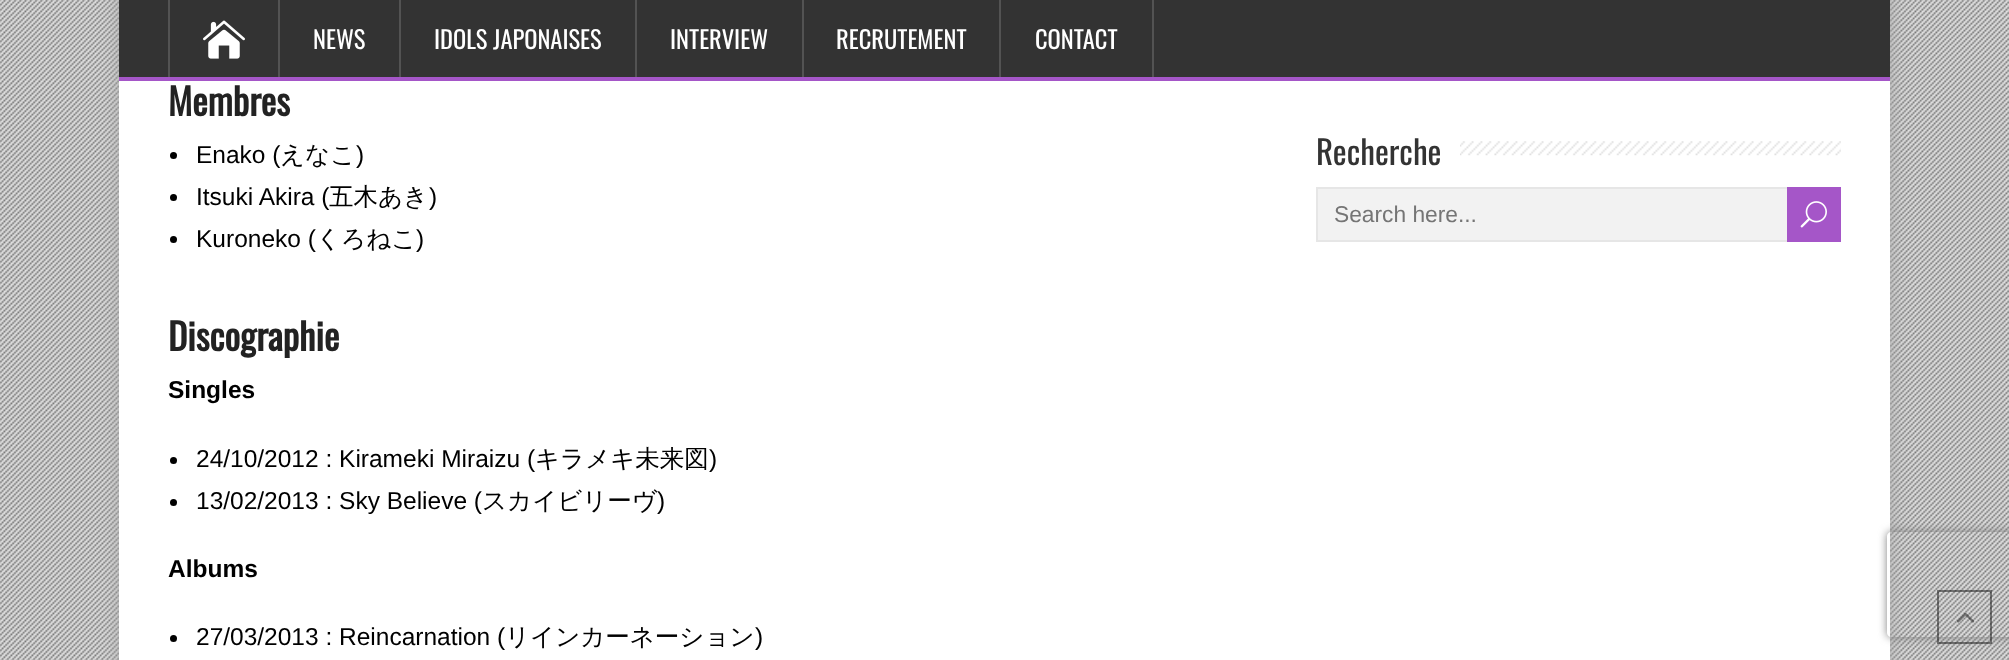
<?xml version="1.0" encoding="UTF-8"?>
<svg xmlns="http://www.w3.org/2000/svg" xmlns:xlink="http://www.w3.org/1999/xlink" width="2009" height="660">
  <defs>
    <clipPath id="clip1"><path d="M 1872 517 h 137 v 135 h -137 z m 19 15 h 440 c 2 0 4 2 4 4 v 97 c 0 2 -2 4 -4 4 h -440 c -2 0 -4 -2 -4 -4 v -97 c 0 -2 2 -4 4 -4 z" clip-rule="evenodd" /></clipPath>
  </defs>
  <rect width="100%" height="100%" fill="#dedede" />
  <image x="0" y="0" width="2009" height="660" xlink:href="image1.png" />
  <rect x="119" y="-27" width="1771" height="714" fill="#aaaaaa" filter="blur(9px)" />
  <rect x="119" y="81" width="1771" height="579" fill="#ffffff" />
  <rect x="119" width="1771" height="77" fill="#333333" />
  <rect x="119" y="77" width="1771" height="4" fill="#a556c8" />
  <rect x="278" width="2" height="77" fill="#535353" />
  <rect x="168" width="2" height="77" fill="#535353" />
  <image x="203" y="20" width="42" height="39" xlink:href="image2.png" />
  <rect x="399" width="2" height="77" fill="#535353" />
  <rect x="635" width="2" height="77" fill="#535353" />
  <rect x="802" width="2" height="77" fill="#535353" />
  <rect x="999" width="2" height="77" fill="#535353" />
  <rect x="1152" width="2" height="77" fill="#535353" />
  <circle cx="173.5" cy="155.5" r="3.5" fill="#000000" />
  <circle cx="173.5" cy="197.5" r="3.5" fill="#000000" />
  <circle cx="173.5" cy="239.5" r="3.5" fill="#000000" />
  <circle cx="173.5" cy="460.5" r="3.5" fill="#000000" />
  <circle cx="173.5" cy="502.5" r="3.5" fill="#000000" />
  <circle cx="173.5" cy="638.5" r="3.5" fill="#000000" />
  <image x="1460" y="141" width="381" height="15" xlink:href="image3.png" />
  <rect x="1318" y="189" width="469" height="51" fill="#f2f2f2" />
  <rect x="1317" y="188" width="521" height="53" fill="none" stroke="#e6e6e6" stroke-width="2" />
  <rect x="1787" y="187" width="54" height="55" fill="#a556c8" />
  <image x="1800" y="201" width="27" height="27" xlink:href="image4.png" />
  <g clip-path="url(#clip1)">
    <rect x="1887" y="532" width="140" height="105" rx="4" fill="#808080" filter="blur(4.5px)" />
  </g>
  <rect x="1938" y="591" width="53" height="52" fill="none" stroke="#111111" stroke-opacity="0.5" stroke-width="2" />
  <image x="1957" y="612" width="18" height="11" xlink:href="image5.png" />
  <text x="313" y="49" style="font-family: Oswald; font-size: 24.5px; fill: #ffffff">NEWS</text>
  <text x="434" y="49" style="font-family: Oswald; font-size: 24.5px; fill: #ffffff">IDOLS JAPONAISES</text>
  <text x="670" y="49" style="font-family: Oswald; font-size: 24.5px; fill: #ffffff">INTERVIEW</text>
  <text x="836" y="49" style="font-family: Oswald; font-size: 24.5px; fill: #ffffff">RECRUTEMENT</text>
  <text x="1035" y="49" style="font-family: Oswald; font-size: 24.5px; fill: #ffffff">CONTACT</text>
  <text x="168" y="116" style="font-family: Oswald; font-size: 36.75px; font-weight: bold; fill: #222222">Membres</text>
  <text x="196" y="163" style="font-family: Liberation Sans; font-size: 24.5px; fill: #000000">Enako (</text>
  <text x="280" y="163" style="font-family: WenQuanYi Zen Hei; font-size: 24.5px; font-weight: 500; fill: #000000">えなこ</text>
  <text x="356" y="163" style="font-family: Liberation Sans; font-size: 24.5px; fill: #000000">)</text>
  <text x="196" y="205" style="font-family: Liberation Sans; font-size: 24.5px; fill: #000000">Itsuki Akira (</text>
  <text x="329" y="205" style="font-family: WenQuanYi Zen Hei; font-size: 24.5px; font-weight: 500; fill: #000000">五木あき</text>
  <text x="429" y="205" style="font-family: Liberation Sans; font-size: 24.5px; fill: #000000">)</text>
  <text x="196" y="247" style="font-family: Liberation Sans; font-size: 24.5px; fill: #000000">Kuroneko (</text>
  <text x="316" y="247" style="font-family: WenQuanYi Zen Hei; font-size: 24.5px; font-weight: 500; fill: #000000">くろねこ</text>
  <text x="416" y="247" style="font-family: Liberation Sans; font-size: 24.5px; fill: #000000">)</text>
  <text x="168" y="351" style="font-family: Oswald; font-size: 36.75px; font-weight: bold; fill: #222222">Discographie</text>
  <text x="168" y="398" style="font-family: Liberation Sans; font-size: 24.5px; font-weight: bold; fill: #000000">Singles</text>
  <text x="196" y="467" style="font-family: Liberation Sans; font-size: 24.5px; fill: #000000">24/10/2012 : Kirameki Miraizu (</text>
  <text x="535" y="467" style="font-family: WenQuanYi Zen Hei; font-size: 24.5px; font-weight: 500; fill: #000000">キラメキ未来図</text>
  <text x="709" y="467" style="font-family: Liberation Sans; font-size: 24.5px; fill: #000000">)</text>
  <text x="196" y="509" style="font-family: Liberation Sans; font-size: 24.5px; fill: #000000">13/02/2013 : Sky Believe (</text>
  <text x="482" y="509" style="font-family: WenQuanYi Zen Hei; font-size: 24.5px; font-weight: 500; fill: #000000">スカイビリーヴ</text>
  <text x="657" y="509" style="font-family: Liberation Sans; font-size: 24.5px; fill: #000000">)</text>
  <text x="168" y="577" style="font-family: Liberation Sans; font-size: 24.5px; font-weight: bold; fill: #000000">Albums</text>
  <text x="196" y="645" style="font-family: Liberation Sans; font-size: 24.5px; fill: #000000">27/03/2013 : Reincarnation (</text>
  <text x="505" y="645" style="font-family: WenQuanYi Zen Hei; font-size: 24.5px; font-weight: 500; fill: #000000">リインカーネーション</text>
  <text x="755" y="645" style="font-family: Liberation Sans; font-size: 24.5px; fill: #000000">)</text>
  <text x="1316" y="165" style="font-family: Oswald; font-size: 33px; fill: #333333">Recherche</text>
  <text x="1334" y="222" style="font-family: Liberation Sans; font-size: 22.75px; fill: #757575">Search here...</text>
</svg>
